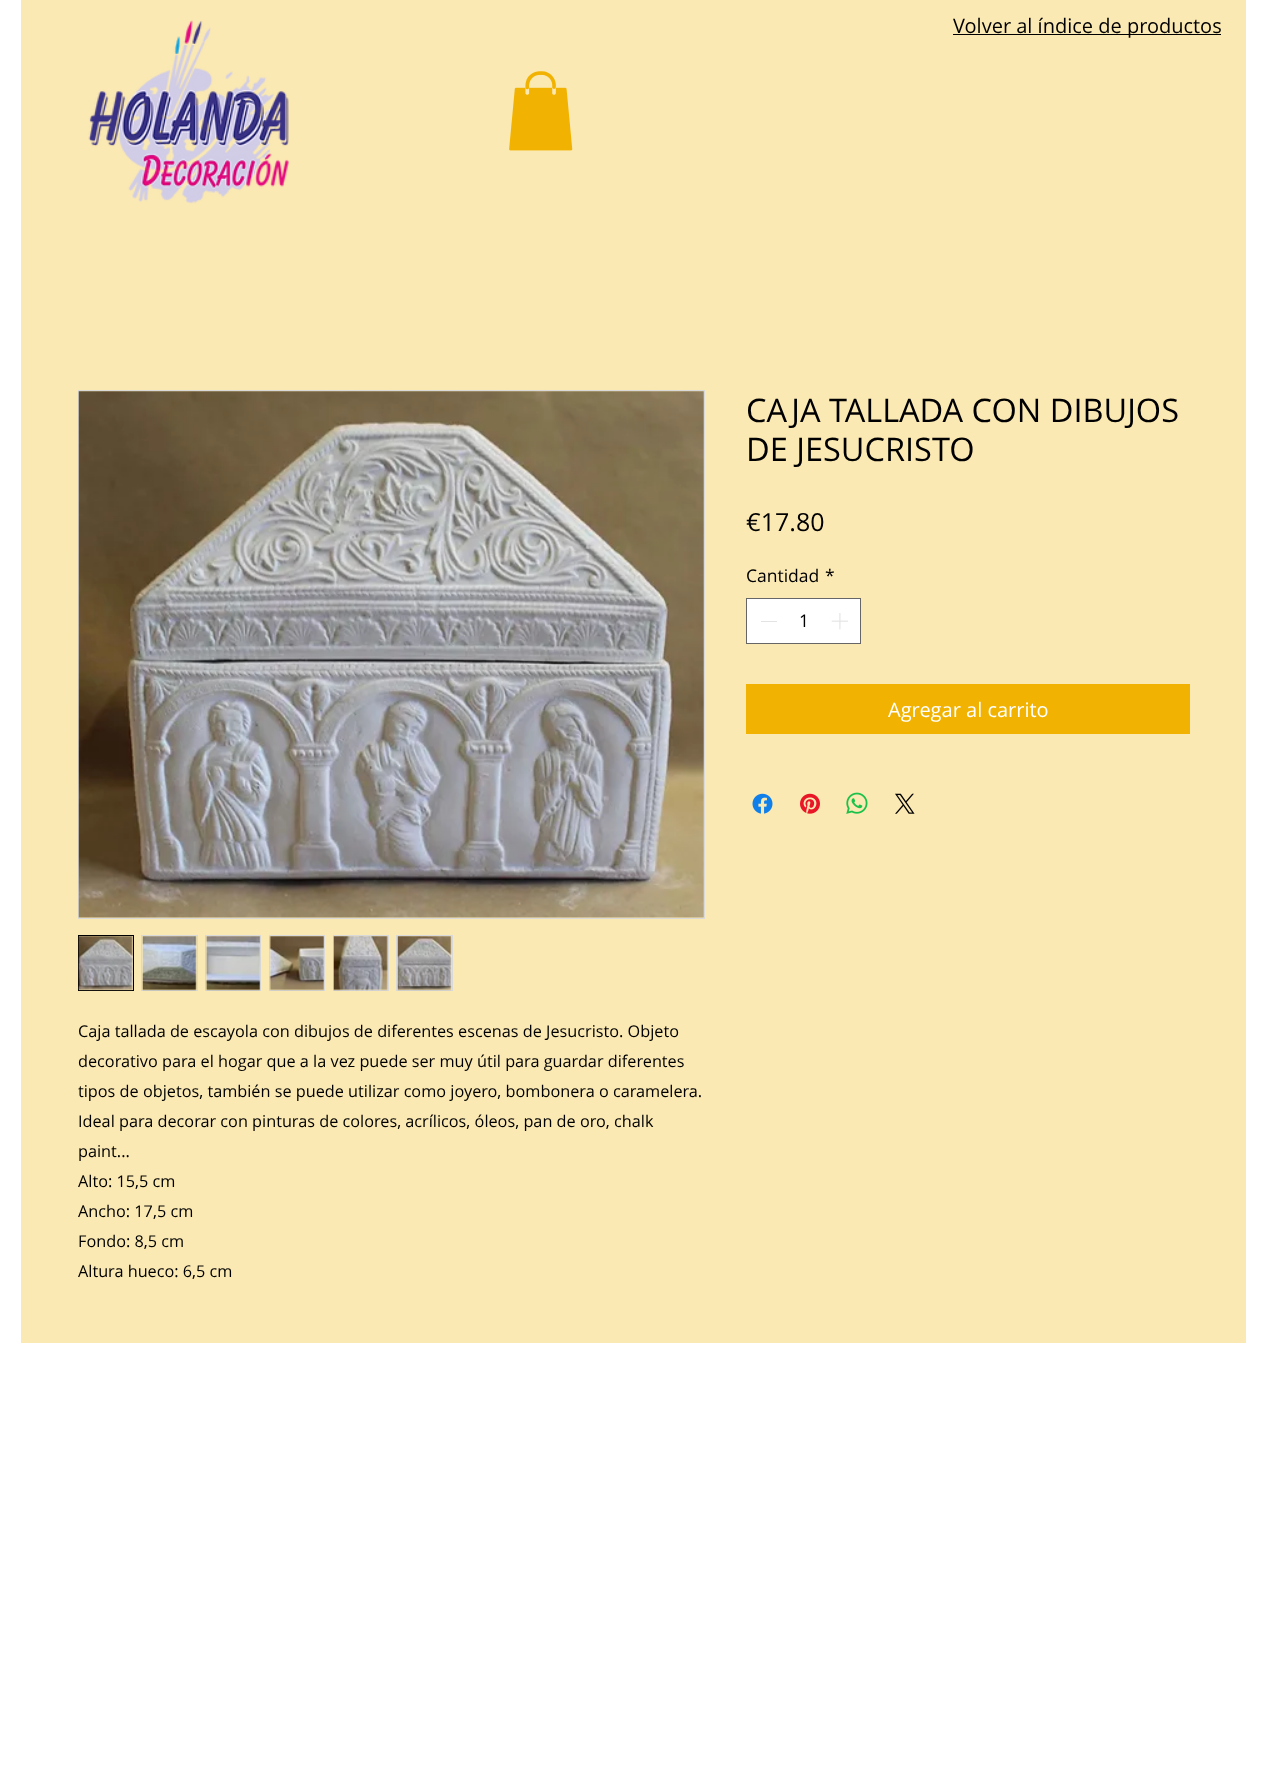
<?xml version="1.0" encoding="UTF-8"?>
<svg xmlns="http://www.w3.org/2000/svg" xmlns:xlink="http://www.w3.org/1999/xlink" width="1267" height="1783">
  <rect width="100%" height="100%" fill="#ffffff" />
  <rect x="21" width="1225" height="1343" fill="#fbe9b3" />
  <image x="88" y="20" width="201" height="184" xlink:href="image1.png" />
  <image x="509" y="71" width="64" height="80" xlink:href="image2.png" />
  <rect x="953" y="34" width="268" height="1" fill="#000000" />
  <rect x="746.5" y="598.5" width="114" height="45" fill="#ffffff" stroke="#666666" />
  <rect x="761" y="621" width="16" height="1" fill="#e3e3e3" />
  <image x="831" y="613" width="17" height="17" xlink:href="image3.png" />
  <rect x="746" y="684" width="444" height="50" fill="#f1b201" />
  <image x="752" y="793" width="21" height="21" xlink:href="image4.png" />
  <image x="800" y="793" width="20" height="21" xlink:href="image5.png" />
  <image x="846" y="792" width="22" height="22" xlink:href="image6.png" />
  <image x="895" y="793" width="20" height="21" xlink:href="image7.png" />
  <rect x="78.5" y="390.5" width="626" height="528" fill="none" stroke="#d9d9d9" />
  <image x="78" y="391" width="626" height="527" xlink:href="image8.png" />
  <rect x="78.5" y="935.5" width="55" height="55" fill="none" stroke="#000000" />
  <image x="78" y="936" width="55" height="55" xlink:href="image9.png" />
  <rect x="141.5" y="935.5" width="56" height="55" fill="none" stroke="#d9d9d9" />
  <image x="142" y="936" width="55" height="55" xlink:href="image10.png" />
  <rect x="205.5" y="935.5" width="55" height="55" fill="none" stroke="#d9d9d9" />
  <image x="205" y="936" width="56" height="55" xlink:href="image11.png" />
  <rect x="269.5" y="935.5" width="55" height="55" fill="none" stroke="#d9d9d9" />
  <image x="269" y="936" width="55" height="55" xlink:href="image12.png" />
  <rect x="333.5" y="935.5" width="55" height="55" fill="none" stroke="#d9d9d9" />
  <image x="333" y="936" width="55" height="55" xlink:href="image13.png" />
  <rect x="396.5" y="935.5" width="56" height="55" fill="none" stroke="#d9d9d9" />
  <image x="397" y="936" width="55" height="55" xlink:href="image14.png" />
  <text x="953" y="33" style="font-family: Open Sans; font-size: 20px; fill: #000000">Volver al índice de productos</text>
  <text x="746" y="422" style="font-family: Open Sans; font-size: 32.5px; fill: #000000">CAJA TALLADA CON DIBUJOS</text>
  <text x="746" y="461" style="font-family: Open Sans; font-size: 32.5px; fill: #000000">DE JESUCRISTO</text>
  <text x="746" y="531" style="font-family: Open Sans; font-size: 25px; fill: #000000">€17.80</text>
  <text x="746" y="582" style="font-family: Open Sans; font-size: 17.5px; fill: #000000">Cantidad</text>
  <text x="825" y="582" style="font-family: Open Sans; font-size: 17.5px; fill: #000000">*</text>
  <text x="799" y="627" style="font-family: Open Sans; font-size: 17.5px; fill: #000000">1</text>
  <text x="888" y="717" style="font-family: Open Sans; font-size: 20px; fill: #ffffff">Agregar al carrito</text>
  <text x="78" y="1037" style="font-family: Open Sans; font-size: 16.25px; fill: #000000">Caja tallada de escayola con dibujos de diferentes escenas de Jesucristo. Objeto</text>
  <text x="78" y="1067" style="font-family: Open Sans; font-size: 16.25px; fill: #000000">decorativo para el hogar que a la vez puede ser muy útil para guardar diferentes</text>
  <text x="78" y="1097" style="font-family: Open Sans; font-size: 16.25px; fill: #000000">tipos de objetos, también se puede utilizar como joyero, bombonera o caramelera.</text>
  <text x="78" y="1127" style="font-family: Open Sans; font-size: 16.25px; fill: #000000">Ideal para decorar con pinturas de colores, acrílicos, óleos, pan de oro, chalk</text>
  <text x="78" y="1157" style="font-family: Open Sans; font-size: 16.25px; fill: #000000">paint...</text>
  <text x="78" y="1187" style="font-family: Open Sans; font-size: 16.25px; fill: #000000">Alto: 15,5 cm</text>
  <text x="78" y="1217" style="font-family: Open Sans; font-size: 16.25px; fill: #000000">Ancho: 17,5 cm</text>
  <text x="78" y="1247" style="font-family: Open Sans; font-size: 16.25px; fill: #000000">Fondo: 8,5 cm</text>
  <text x="78" y="1277" style="font-family: Open Sans; font-size: 16.25px; fill: #000000">Altura hueco: 6,5 cm</text>
</svg>
